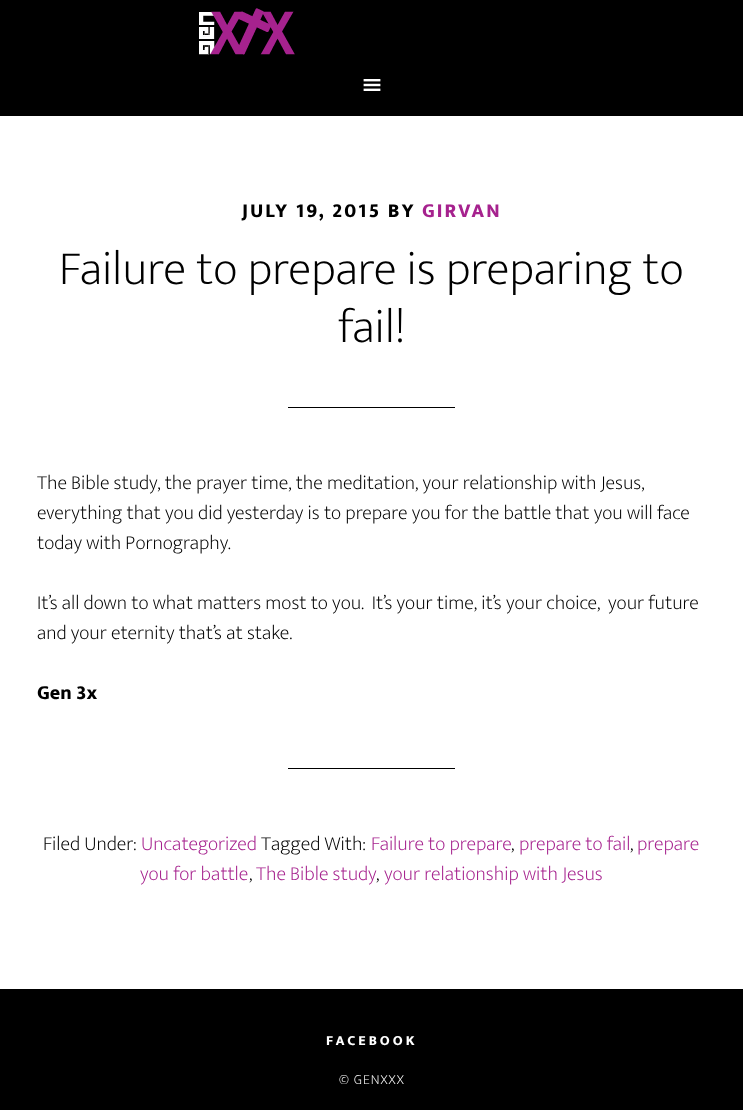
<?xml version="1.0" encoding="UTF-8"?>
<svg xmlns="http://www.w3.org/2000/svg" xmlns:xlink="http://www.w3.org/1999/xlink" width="743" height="1110">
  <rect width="100%" height="100%" fill="#ffffff" />
  <rect width="743" height="116" fill="#000000" />
  <image x="199" y="8" width="96" height="47" xlink:href="image1.png" />
  <image x="363" y="79" width="18" height="12" xlink:href="image2.png" />
  <rect x="288" y="407" width="167" height="1" fill="#000000" />
  <rect x="288" y="768" width="167" height="1" fill="#000000" />
  <rect y="989" width="743" height="121" fill="#000000" />
  <text x="242" y="217" style="font-family: Ek Mukta; font-size: 20px; font-weight: 800; letter-spacing: 2px; fill: #000000">JULY 19, 2015 BY</text>
  <text x="422" y="217" style="font-family: Ek Mukta; font-size: 20px; font-weight: 800; letter-spacing: 2px; fill: #a6228e">GIRVAN</text>
  <text x="59" y="284" style="font-family: Ek Mukta; font-size: 48px; font-weight: 200; fill: #000000">Failure to prepare is preparing to</text>
  <text x="338" y="342" style="font-family: Ek Mukta; font-size: 48px; font-weight: 200; fill: #000000">fail!</text>
  <text x="37" y="489" style="font-family: Ek Mukta; font-size: 20px; font-weight: 200; fill: #000000">The Bible study, the prayer time, the meditation, your relationship with Jesus,</text>
  <text x="37" y="519" style="font-family: Ek Mukta; font-size: 20px; font-weight: 200; fill: #000000">everything that you did yesterday is to prepare you for the battle that you will face</text>
  <text x="37" y="549" style="font-family: Ek Mukta; font-size: 20px; font-weight: 200; fill: #000000">today with Pornography.</text>
  <text x="37" y="609" style="font-family: Ek Mukta; font-size: 20px; font-weight: 200; fill: #000000" xml:space="preserve">It’s all down to what matters most to you.  It’s your time, it’s your choice,  your future</text>
  <text x="37" y="639" style="font-family: Ek Mukta; font-size: 20px; font-weight: 200; fill: #000000">and your eternity that’s at stake.</text>
  <text x="37" y="699" style="font-family: Ek Mukta; font-size: 20px; font-weight: 800; fill: #000000">Gen 3x</text>
  <text x="43" y="850" style="font-family: Ek Mukta; font-size: 20px; font-weight: 200; fill: #000000">Filed Under:</text>
  <text x="141" y="850" style="font-family: Ek Mukta; font-size: 20px; font-weight: 200; fill: #a6228e">Uncategorized</text>
  <text x="261" y="850" style="font-family: Ek Mukta; font-size: 20px; font-weight: 200; fill: #000000">Tagged With:</text>
  <text x="371" y="850" style="font-family: Ek Mukta; font-size: 20px; font-weight: 200; fill: #a6228e">Failure to prepare</text>
  <text x="511" y="850" style="font-family: Ek Mukta; font-size: 20px; font-weight: 200; fill: #000000">,</text>
  <text x="519" y="850" style="font-family: Ek Mukta; font-size: 20px; font-weight: 200; fill: #a6228e">prepare to fail</text>
  <text x="630" y="850" style="font-family: Ek Mukta; font-size: 20px; font-weight: 200; fill: #000000">,</text>
  <text x="637" y="850" style="font-family: Ek Mukta; font-size: 20px; font-weight: 200; fill: #a6228e">prepare</text>
  <text x="140" y="880" style="font-family: Ek Mukta; font-size: 20px; font-weight: 200; fill: #a6228e">you for battle</text>
  <text x="249" y="880" style="font-family: Ek Mukta; font-size: 20px; font-weight: 200; fill: #000000">,</text>
  <text x="256" y="880" style="font-family: Ek Mukta; font-size: 20px; font-weight: 200; fill: #a6228e">The Bible study</text>
  <text x="376" y="880" style="font-family: Ek Mukta; font-size: 20px; font-weight: 200; fill: #000000">,</text>
  <text x="384" y="880" style="font-family: Ek Mukta; font-size: 20px; font-weight: 200; fill: #a6228e">your relationship with Jesus</text>
  <text x="326" y="1045" style="font-family: Ek Mukta; font-size: 14px; font-weight: 800; letter-spacing: 3px; fill: #ffffff">FACEBOOK</text>
  <text x="339" y="1084" style="font-family: Ek Mukta; font-size: 14px; font-weight: 200; letter-spacing: 1px; fill: #ffffff">© GENXXX</text>
</svg>
